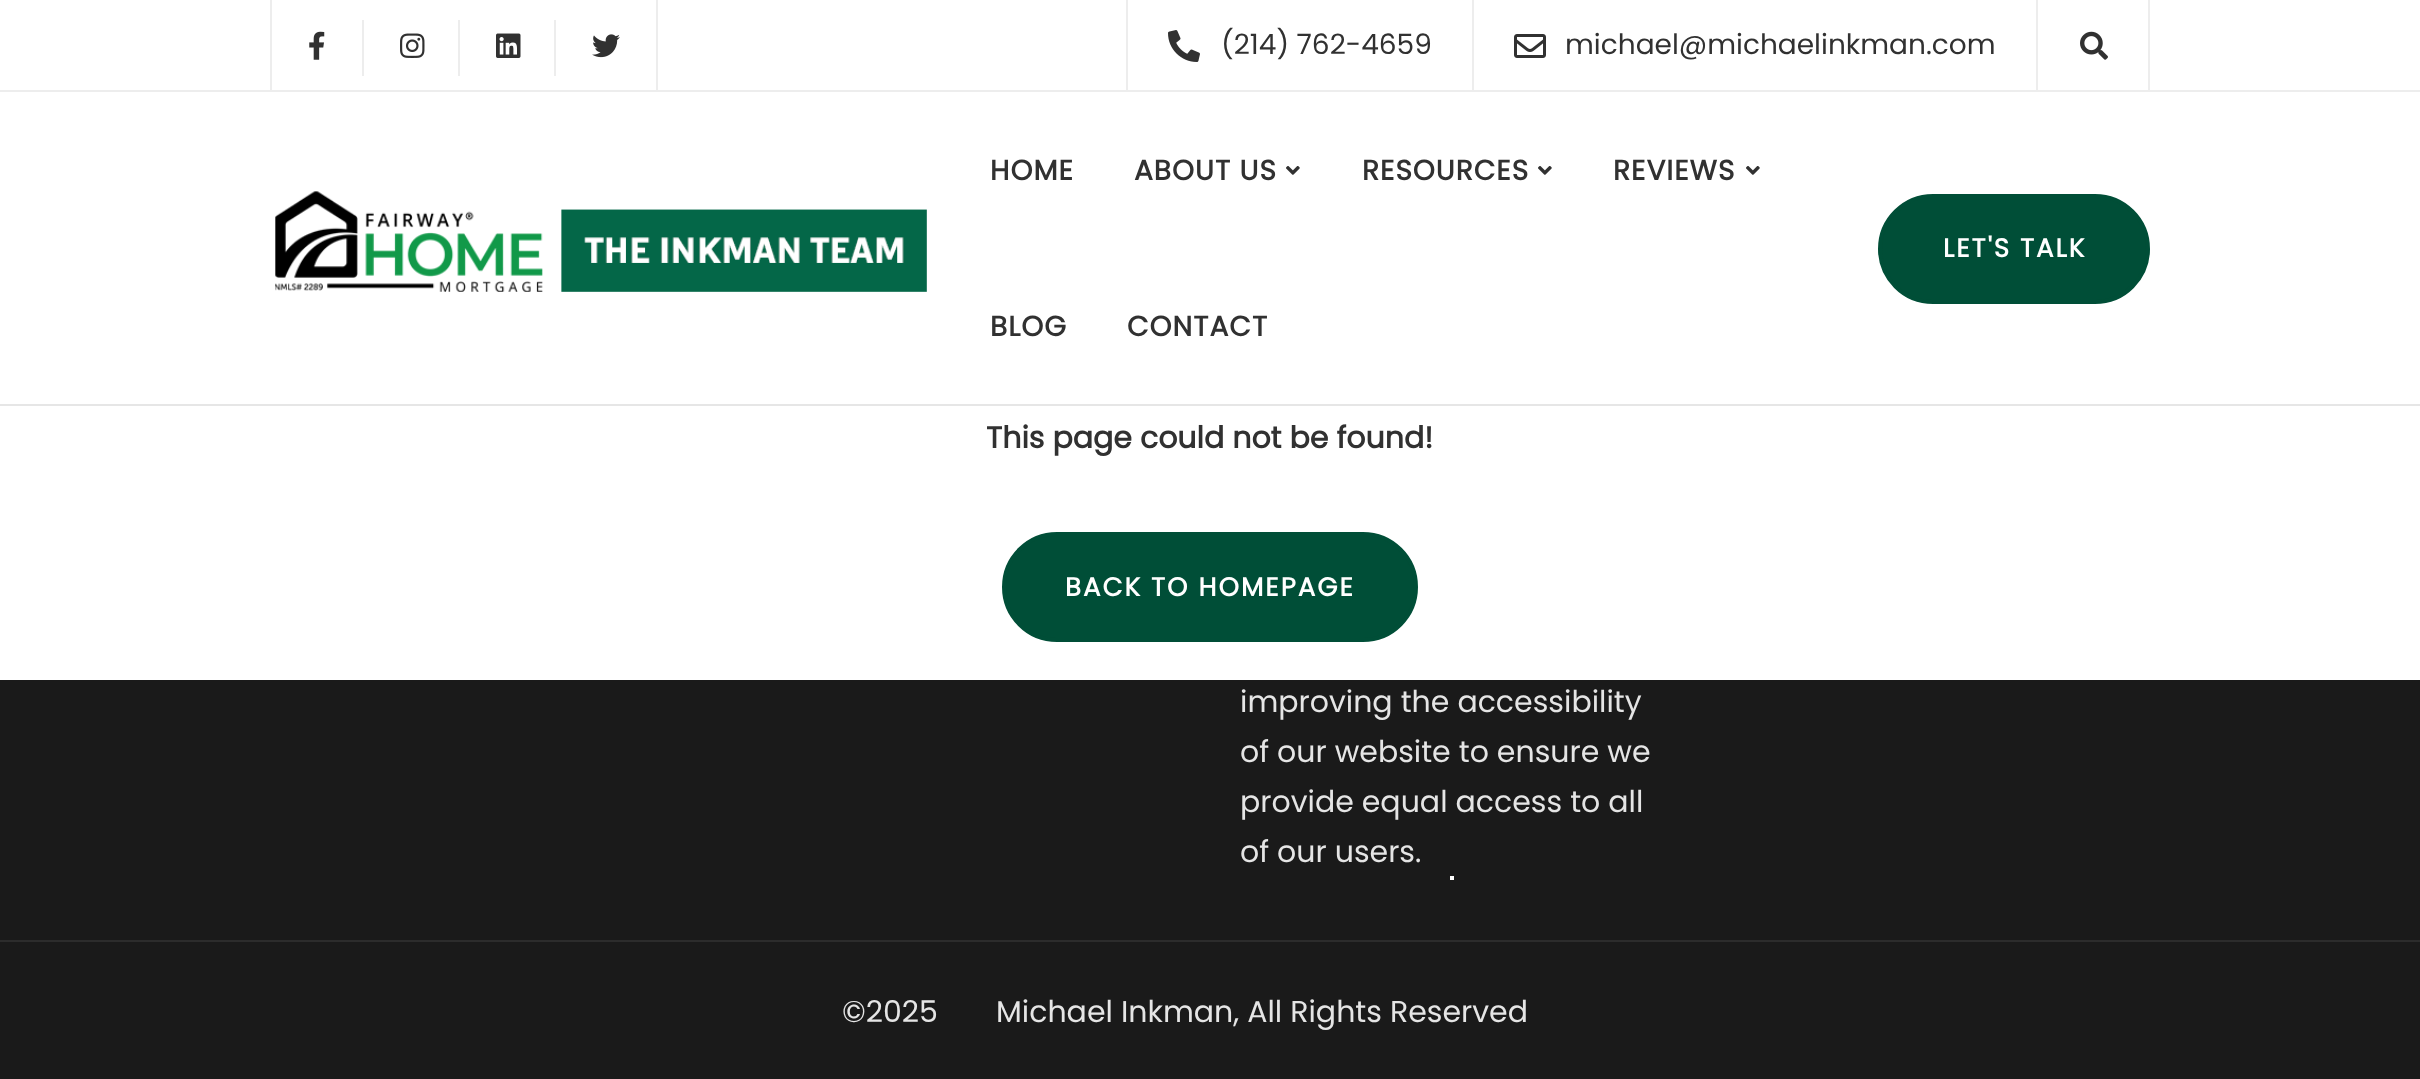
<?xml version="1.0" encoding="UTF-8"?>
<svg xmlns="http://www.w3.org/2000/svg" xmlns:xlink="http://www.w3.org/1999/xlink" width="2420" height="1079">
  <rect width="100%" height="100%" fill="#1a1a1a" />
  <rect width="2420" height="680" fill="#ffffff" />
  <rect y="404" width="2420" height="2" fill="#e6e6e6" />
  <rect y="90" width="2420" height="2" fill="#ededed" />
  <rect x="656" width="2" height="90" fill="#ededed" />
  <rect x="270" width="2" height="90" fill="#ededed" />
  <rect x="362" y="20" width="2" height="56" fill="#ededed" />
  <image x="309" y="31" width="16" height="29" xlink:href="image1.png" />
  <rect x="458" y="20" width="2" height="56" fill="#ededed" />
  <image x="400" y="33" width="25" height="25" xlink:href="image2.png" />
  <rect x="554" y="20" width="2" height="56" fill="#ededed" />
  <image x="496" y="33" width="25" height="25" xlink:href="image3.png" />
  <image x="592" y="34" width="28" height="24" xlink:href="image4.png" />
  <rect x="1126" width="2" height="90" fill="#ededed" />
  <rect x="1472" width="2" height="90" fill="#ededed" />
  <image x="1168" y="30" width="32" height="32" xlink:href="image5.png" />
  <image x="1514" y="34" width="32" height="24" xlink:href="image6.png" />
  <rect x="2148" width="2" height="90" fill="#ededed" />
  <rect x="2036" width="2" height="90" fill="#ededed" />
  <image x="2080" y="31" width="28" height="29" xlink:href="image7.png" />
  <image x="275" y="191" width="652" height="101" xlink:href="image8.png" />
  <image x="1286" y="166" width="14" height="9" xlink:href="image9.png" />
  <image x="1538" y="166" width="14" height="9" xlink:href="image9.png" />
  <image x="1746" y="166" width="14" height="9" xlink:href="image9.png" />
  <rect x="1880" y="196" width="268" height="106" rx="53" fill="#004e37" stroke="#004e37" stroke-width="4" />
  <rect x="1004" y="534" width="412" height="106" rx="53" fill="#004e37" stroke="#004e37" stroke-width="4" />
  <rect x="1450" y="876" width="4" height="4" fill="#ffffff" />
  <rect y="940" width="2420" height="2" fill="#2c2c2c" />
  <text x="1221" y="54" style="font-family: Poppins; font-size: 28px; fill: #313131">(214) 762-4659</text>
  <text x="1565" y="54" style="font-family: Poppins; font-size: 28px; fill: #313131">michael@michaelinkman.com</text>
  <text x="990" y="180" style="font-family: Poppins; font-size: 28px; font-weight: bold; letter-spacing: 1px; fill: #313131">HOME</text>
  <text x="1134" y="180" style="font-family: Poppins; font-size: 28px; font-weight: bold; letter-spacing: 1px; fill: #313131">ABOUT US</text>
  <text x="1362" y="180" style="font-family: Poppins; font-size: 28px; font-weight: bold; letter-spacing: 1px; fill: #313131">RESOURCES</text>
  <text x="1613" y="180" style="font-family: Poppins; font-size: 28px; font-weight: bold; letter-spacing: 1px; fill: #313131">REVIEWS</text>
  <text x="990" y="336" style="font-family: Poppins; font-size: 28px; font-weight: bold; letter-spacing: 1px; fill: #313131">BLOG</text>
  <text x="1127" y="336" style="font-family: Poppins; font-size: 28px; font-weight: bold; letter-spacing: 1px; fill: #313131">CONTACT</text>
  <text x="1943" y="257" style="font-family: Poppins; font-size: 26px; font-weight: bold; letter-spacing: 2px; fill: #ffffff">LET'S TALK</text>
  <text x="986" y="448" style="font-family: Poppins; font-size: 30px; font-weight: bold; fill: #313131">This page could not be found!</text>
  <text x="1065" y="596" style="font-family: Poppins; font-size: 26px; font-weight: bold; letter-spacing: 2px; fill: #ffffff">BACK TO HOMEPAGE</text>
  <text x="1240" y="712" style="font-family: Poppins; font-size: 30px; fill: #e5e5e5">improving the accessibility</text>
  <text x="1240" y="762" style="font-family: Poppins; font-size: 30px; fill: #e5e5e5">of our website to ensure we</text>
  <text x="1240" y="812" style="font-family: Poppins; font-size: 30px; fill: #e5e5e5">provide equal access to all</text>
  <text x="1240" y="862" style="font-family: Poppins; font-size: 30px; fill: #e5e5e5">of our users.</text>
  <text x="842" y="1022" style="font-family: Poppins; font-size: 30px; fill: #e5e5e5">©2025</text>
  <text x="996" y="1022" style="font-family: Poppins; font-size: 30px; fill: #e5e5e5">Michael Inkman, All Rights Reserved</text>
</svg>
